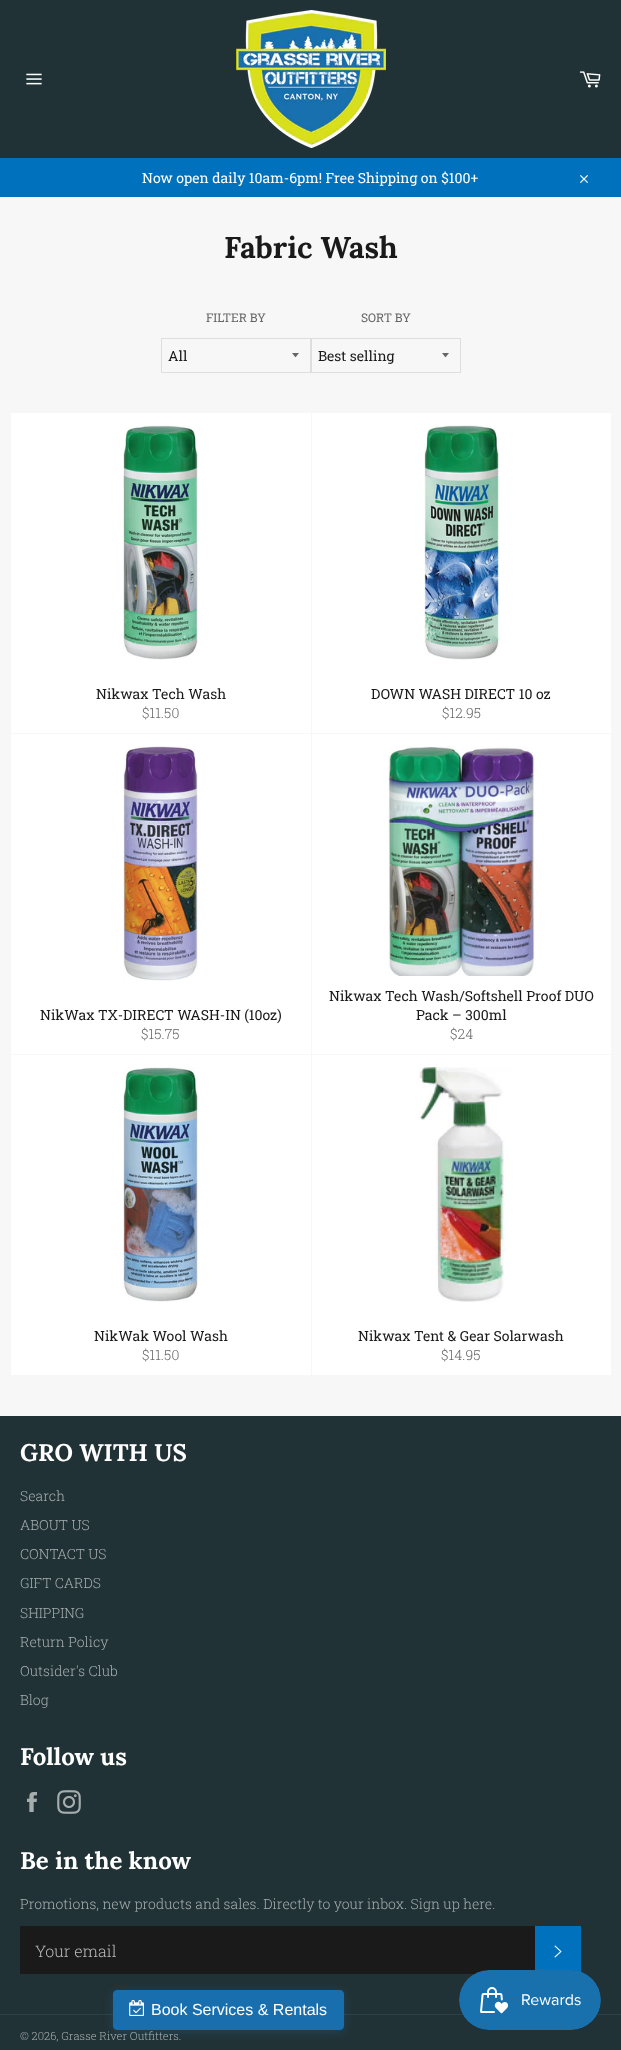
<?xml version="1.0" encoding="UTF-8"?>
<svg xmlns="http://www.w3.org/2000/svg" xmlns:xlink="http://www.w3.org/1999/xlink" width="621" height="2050">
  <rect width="100%" height="100%" fill="#f7f7f7" />
  <rect width="621" height="158" fill="#213236" />
  <image x="26" y="73" width="16" height="12" xlink:href="image1.png" />
  <image x="236" y="10" width="150" height="138" xlink:href="image2.png" />
  <image x="579" y="71" width="22" height="17" xlink:href="image3.png" />
  <rect y="158" width="621" height="39" fill="#0071bc" />
  <image x="580" y="175" width="8" height="8" xlink:href="image4.png" />
  <path d="M 292 353 c 4.5 5.5 2.5 5.5 7 0 z" fill="#666666" />
  <rect x="161.5" y="338.5" width="149" height="34" fill="none" stroke="#dedede" />
  <path d="M 442 353 c 4.5 5.5 2.5 5.5 7 0 z" fill="#666666" />
  <rect x="311.5" y="338.5" width="149" height="34" fill="none" stroke="#dedede" />
  <rect x="11" y="413" width="300" height="320" fill="#ffffff" />
  <image x="123" y="425" width="75" height="235" xlink:href="image5.png" />
  <rect x="312" y="413" width="299" height="320" fill="#ffffff" />
  <image x="424" y="425" width="75" height="235" xlink:href="image6.png" />
  <rect x="11" y="734" width="300" height="320" fill="#ffffff" />
  <image x="123" y="746" width="75" height="235" xlink:href="image7.png" />
  <rect x="312" y="734" width="299" height="320" fill="#ffffff" />
  <image x="388" y="746" width="147" height="230" xlink:href="image8.png" />
  <rect x="11" y="1055" width="300" height="320" fill="#ffffff" />
  <image x="123" y="1067" width="75" height="235" xlink:href="image9.png" />
  <rect x="312" y="1055" width="299" height="320" fill="#ffffff" />
  <image x="417" y="1067" width="94" height="235" xlink:href="image10.png" />
  <rect y="1416" width="621" height="634" fill="#213236" />
  <image x="27" y="1792" width="10" height="20" xlink:href="image11.png" />
  <image x="57" y="1790" width="24" height="24" xlink:href="image12.png" />
  <rect x="20" y="1926" width="515" height="48" fill="#1a1a1a" />
  <rect x="535" y="1926" width="46" height="46" fill="#0071bc" />
  <image x="554" y="1945" width="8" height="13" xlink:href="image13.png" />
  <rect y="2014" width="621" height="1" fill="#2b4146" />
  <rect x="113" y="1992" width="231" height="40" rx="4" fill="#196fad" fill-opacity="0.3" filter="blur(5px)" />
  <rect x="113.5" y="1990.5" width="230" height="39" rx="3.5" fill="#196fad" stroke="#196fad" />
  <image x="129" y="2000" width="15" height="16" xlink:href="image14.png" />
  <image x="459" y="1970" width="142" height="60" xlink:href="image15.png" />
  <text x="142" y="183" style="font-family: Roboto Slab; font-size: 14px; fill: #ffffff">Now open daily 10am-6pm! Free Shipping on $100+</text>
  <text x="224" y="258" style="font-family: Lora; font-size: 30px; font-weight: bold; fill: #1a1a1a">Fabric Wash</text>
  <text x="206" y="322" style="font-family: Roboto Slab; font-size: 12px; fill: #666666">FILTER BY</text>
  <text x="168" y="361" style="font-family: Roboto Slab; font-size: 14px; fill: #1a1a1a">All</text>
  <text x="361" y="322" style="font-family: Roboto Slab; font-size: 12px; fill: #666666">SORT BY</text>
  <text x="318" y="361" style="font-family: Roboto Slab; font-size: 14px; fill: #1a1a1a">Best selling</text>
  <text x="96" y="699" style="font-family: Roboto Slab; font-size: 14px; fill: #1a1a1a">Nikwax Tech Wash</text>
  <text x="142" y="718" style="font-family: Roboto Slab; font-size: 14px; font-weight: 300; fill: #666666">$11.50</text>
  <text x="371" y="699" style="font-family: Roboto Slab; font-size: 14px; fill: #1a1a1a">DOWN WASH DIRECT 10 oz</text>
  <text x="442" y="718" style="font-family: Roboto Slab; font-size: 14px; font-weight: 300; fill: #666666">$12.95</text>
  <text x="40" y="1020" style="font-family: Roboto Slab; font-size: 14px; fill: #1a1a1a">NikWax TX-DIRECT WASH-IN (10oz)</text>
  <text x="141" y="1039" style="font-family: Roboto Slab; font-size: 14px; font-weight: 300; fill: #666666">$15.75</text>
  <text x="329" y="1001" style="font-family: Roboto Slab; font-size: 14px; fill: #1a1a1a">Nikwax Tech Wash/Softshell Proof DUO</text>
  <text x="416" y="1020" style="font-family: Roboto Slab; font-size: 14px; fill: #1a1a1a">Pack – 300ml</text>
  <text x="450" y="1039" style="font-family: Roboto Slab; font-size: 14px; font-weight: 300; fill: #666666">$24</text>
  <text x="94" y="1341" style="font-family: Roboto Slab; font-size: 14px; fill: #1a1a1a">NikWak Wool Wash</text>
  <text x="142" y="1360" style="font-family: Roboto Slab; font-size: 14px; font-weight: 300; fill: #666666">$11.50</text>
  <text x="358" y="1341" style="font-family: Roboto Slab; font-size: 14px; fill: #1a1a1a">Nikwax Tent &amp; Gear Solarwash</text>
  <text x="441" y="1360" style="font-family: Roboto Slab; font-size: 14px; font-weight: 300; fill: #666666">$14.95</text>
  <text x="20" y="1461" style="font-family: Lora; font-size: 24px; font-weight: bold; fill: #ffffff">GRO WITH US</text>
  <text x="20" y="1501" style="font-family: Roboto Slab; font-size: 14px; font-weight: 300; fill: #a6adaf">Search</text>
  <text x="20" y="1530" style="font-family: Roboto Slab; font-size: 14px; font-weight: 300; fill: #a6adaf">ABOUT US</text>
  <text x="20" y="1559" style="font-family: Roboto Slab; font-size: 14px; font-weight: 300; fill: #a6adaf">CONTACT US</text>
  <text x="20" y="1588" style="font-family: Roboto Slab; font-size: 14px; font-weight: 300; fill: #a6adaf">GIFT CARDS</text>
  <text x="20" y="1618" style="font-family: Roboto Slab; font-size: 14px; font-weight: 300; fill: #a6adaf">SHIPPING</text>
  <text x="20" y="1647" style="font-family: Roboto Slab; font-size: 14px; font-weight: 300; fill: #a6adaf">Return Policy</text>
  <text x="20" y="1676" style="font-family: Roboto Slab; font-size: 14px; font-weight: 300; fill: #a6adaf">Outsider's Club</text>
  <text x="20" y="1705" style="font-family: Roboto Slab; font-size: 14px; font-weight: 300; fill: #a6adaf">Blog</text>
  <text x="20" y="1765" style="font-family: Lora; font-size: 24px; font-weight: bold; fill: #ffffff">Follow us</text>
  <text x="20" y="1869" style="font-family: Lora; font-size: 24px; font-weight: bold; fill: #ffffff">Be in the know</text>
  <text x="20" y="1909" style="font-family: Roboto Slab; font-size: 14px; font-weight: 300; fill: #a6adaf">Promotions, new products and sales. Directly to your inbox. Sign up here.</text>
  <text x="35" y="1957" style="font-family: Roboto Slab; font-size: 16px; font-weight: 300; fill: #bababa">Your email</text>
  <text x="20" y="2040" style="font-family: Roboto Slab; font-size: 11.25px; font-weight: 300; fill: #a6adaf">© 2026, Grasse River Outfitters.</text>
  <text x="151" y="2015" style="font-family: Liberation Sans; font-size: 16px; fill: #ffffff">Book Services &amp; Rentals</text>
</svg>
